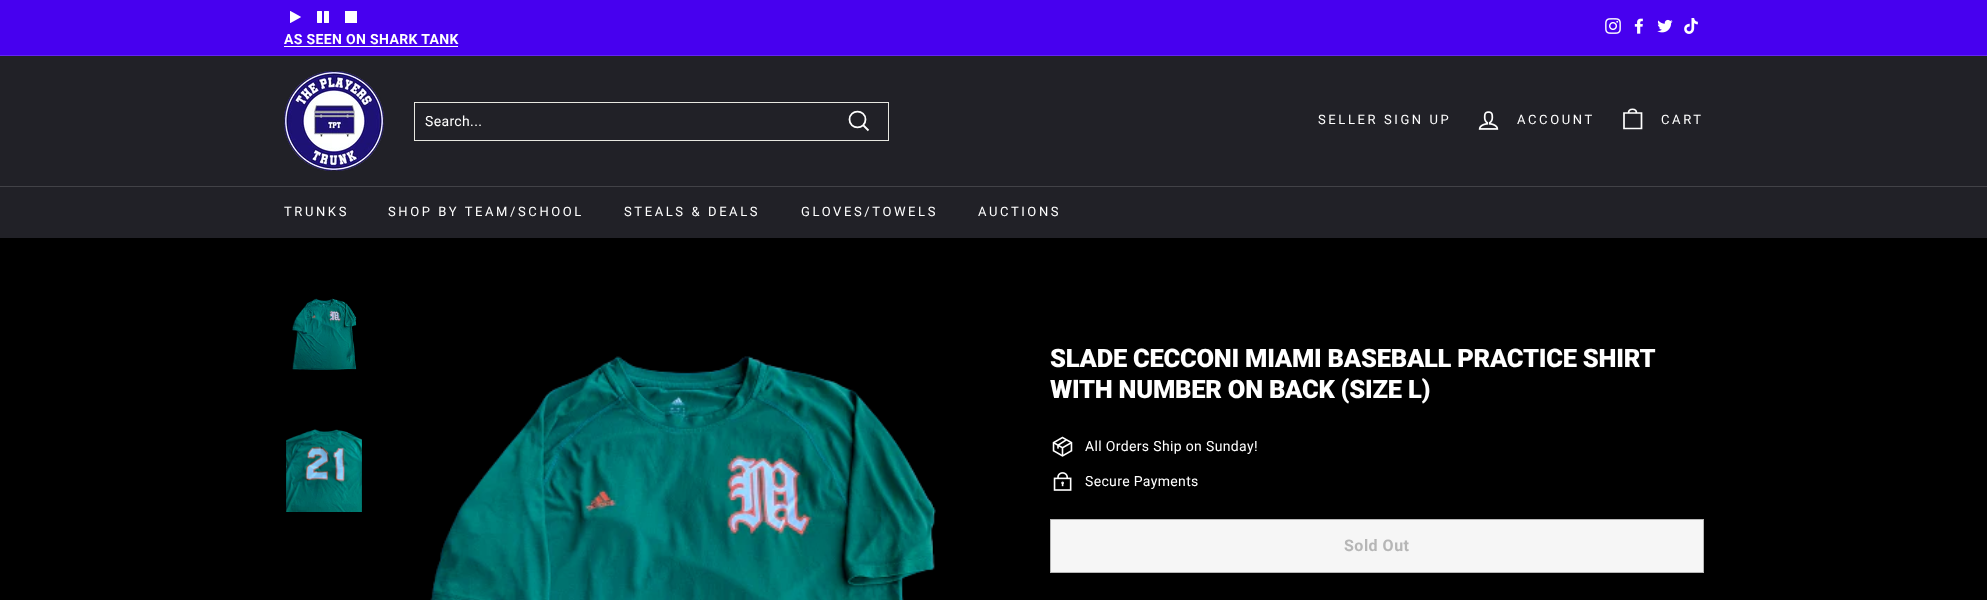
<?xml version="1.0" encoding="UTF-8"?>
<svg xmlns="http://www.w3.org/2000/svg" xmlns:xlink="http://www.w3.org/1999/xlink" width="1987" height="600">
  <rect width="100%" height="100%" fill="#000000" />
  <rect width="1987" height="55" fill="#4700ef" />
  <image x="1605" y="18" width="16" height="16" xlink:href="image1.png" />
  <image x="1634" y="18" width="9" height="16" xlink:href="image2.png" />
  <image x="1657" y="19" width="16" height="14" xlink:href="image3.png" />
  <image x="1684" y="18" width="14" height="16" xlink:href="image4.png" />
  <image x="290" y="11" width="11" height="12" xlink:href="image5.png" />
  <image x="317" y="11" width="12" height="12" xlink:href="image6.png" />
  <rect x="345" y="11" width="12" height="12" fill="#ffffff" />
  <rect x="284" y="46" width="174" height="1" fill="#ffffff" />
  <rect y="55" width="1987" height="1" fill="#6326f1" />
  <rect y="56" width="1987" height="130" fill="#212127" />
  <image x="284" y="71" width="100" height="100" xlink:href="image7.png" />
  <rect x="414.5" y="102.5" width="474" height="38" fill="none" stroke="#e8e8e1" />
  <path d="M 865.5 119.5 c 0 10.5 -16 10.5 -16 0 c 0 -10.5 16 -10.5 16 0 z m 3 11 l -5 -5" fill="none" stroke="#ffffff" stroke-width="1.8" />
  <image x="1478" y="111" width="21" height="19" xlink:href="image8.png" />
  <path d="M 1628.5 113 c 0 -5 8 -5 8 0 m -12.5 0 h 17.5 v 15.5 h -17.5 z" fill="none" stroke="#ffffff" stroke-width="1.7" />
  <rect y="186" width="1987" height="1" fill="#424247" />
  <rect y="187" width="1987" height="51" fill="#212127" />
  <image x="292" y="298" width="65" height="72" xlink:href="image9.png" />
  <image x="286" y="429" width="76" height="83" xlink:href="image10.png" />
  <image x="430" y="356" width="506" height="244" xlink:href="image11.png" />
  <image x="1052" y="436" width="21" height="21" xlink:href="image12.png" />
  <image x="1053" y="472" width="19" height="19" xlink:href="image13.png" />
  <rect x="1050.5" y="519.5" width="653" height="53" fill="#f6f6f6" stroke="#b6b6b6" />
  <text x="284" y="44" style="font-family: Roboto; font-size: 14px; font-weight: bold; letter-spacing: 0.35px; fill: #ffffff">AS SEEN ON SHARK TANK</text>
  <text x="425" y="126" style="font-family: Roboto; font-size: 14px; letter-spacing: 0.35px; fill: #ffffff">Search...</text>
  <text x="1318" y="124" style="font-family: Roboto; font-size: 13px; letter-spacing: 2.6px; fill: #ffffff">SELLER SIGN UP</text>
  <text x="1517" y="124" style="font-family: Roboto; font-size: 13px; letter-spacing: 2.6px; fill: #ffffff">ACCOUNT</text>
  <text x="1661" y="124" style="font-family: Roboto; font-size: 13px; letter-spacing: 2.6px; fill: #ffffff">CART</text>
  <text x="284" y="216" style="font-family: Roboto; font-size: 13px; letter-spacing: 2.6px; fill: #ffffff">TRUNKS</text>
  <text x="388" y="216" style="font-family: Roboto; font-size: 13px; letter-spacing: 2.6px; fill: #ffffff">SHOP BY TEAM/SCHOOL</text>
  <text x="624" y="216" style="font-family: Roboto; font-size: 13px; letter-spacing: 2.6px; fill: #ffffff">STEALS &amp; DEALS</text>
  <text x="801" y="216" style="font-family: Roboto; font-size: 13px; letter-spacing: 2.6px; fill: #ffffff">GLOVES/TOWELS</text>
  <text x="978" y="216" style="font-family: Roboto; font-size: 13px; letter-spacing: 2.6px; fill: #ffffff">AUCTIONS</text>
  <text x="1050" y="367" style="font-family: Roboto; font-size: 25.5px; font-weight: 900; letter-spacing: -0.25px; fill: #ffffff">SLADE CECCONI MIAMI BASEBALL PRACTICE SHIRT</text>
  <text x="1050" y="398" style="font-family: Roboto; font-size: 25.5px; font-weight: 900; letter-spacing: -0.25px; fill: #ffffff">WITH NUMBER ON BACK (SIZE L)</text>
  <text x="1085" y="451" style="font-family: Roboto; font-size: 14px; letter-spacing: 0.35px; fill: #ffffff">All Orders Ship on Sunday!</text>
  <text x="1085" y="486" style="font-family: Roboto; font-size: 14px; letter-spacing: 0.35px; fill: #ffffff">Secure Payments</text>
  <text x="1344" y="551" style="font-family: Roboto; font-size: 16px; font-weight: bold; letter-spacing: 0.5px; fill: #b6b6b6">Sold Out</text>
</svg>
